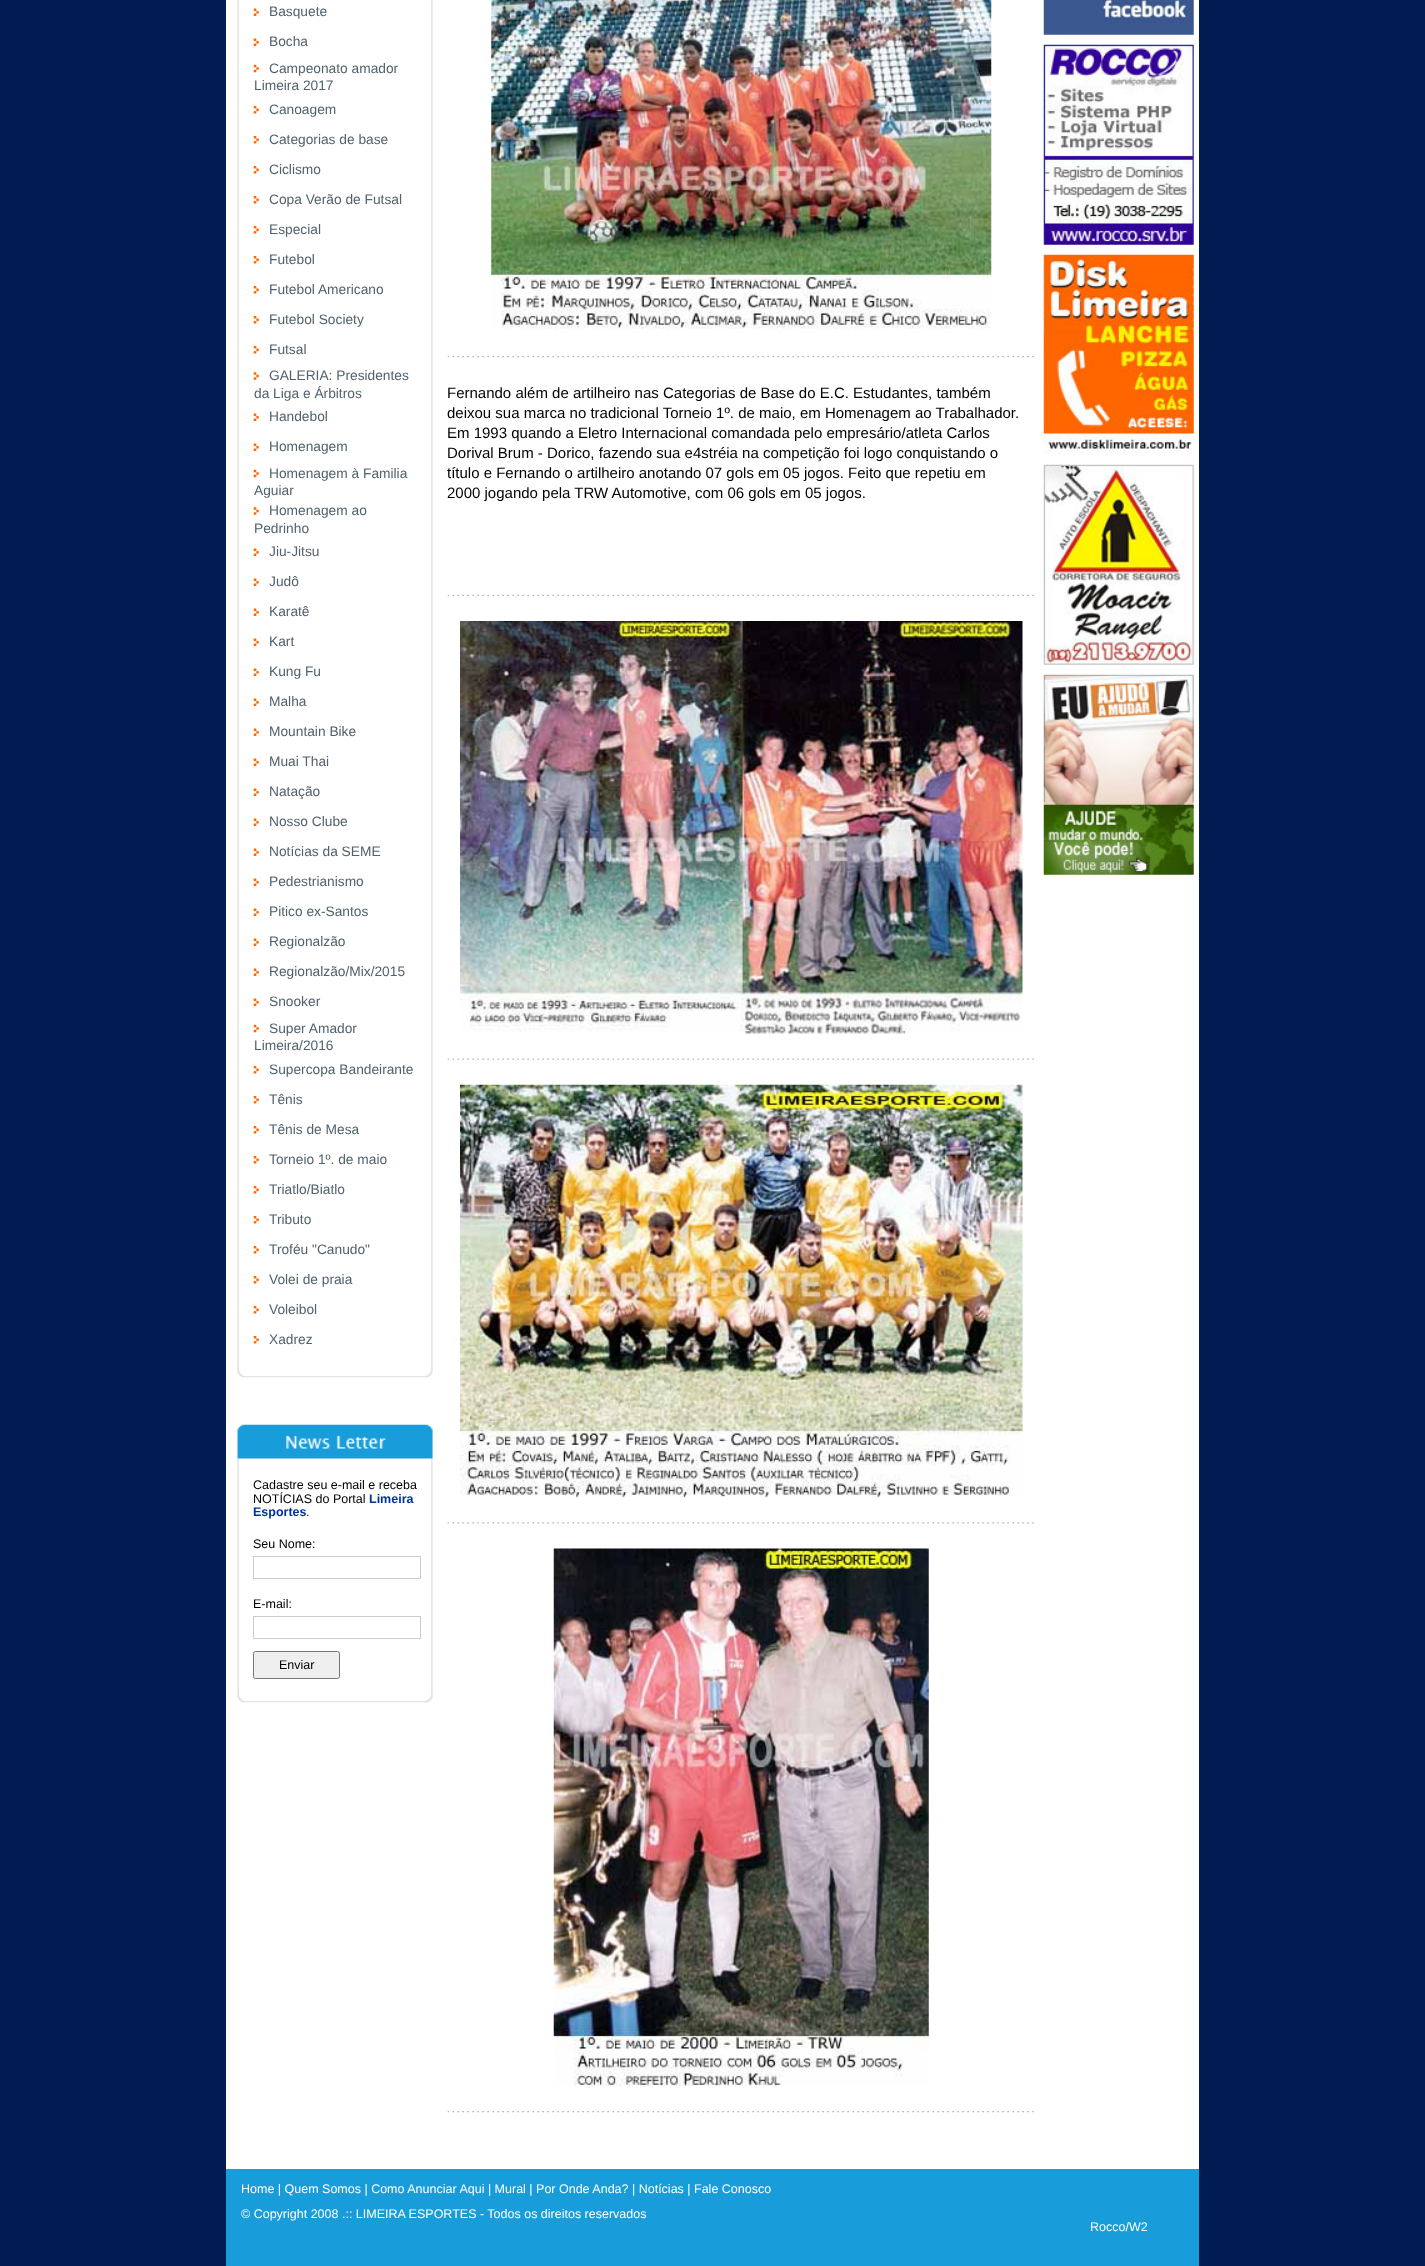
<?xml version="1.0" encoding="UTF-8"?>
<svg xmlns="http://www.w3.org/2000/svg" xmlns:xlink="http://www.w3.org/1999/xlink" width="1425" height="2266">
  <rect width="100%" height="100%" fill="#001c52" />
  <rect x="226" width="973" height="2169" fill="#ffffff" />
  <image x="237" y="0" width="196" height="1363" xlink:href="image1.png" />
  <image x="253" y="8" width="6" height="8" xlink:href="image2.png" />
  <image x="253" y="38" width="6" height="8" xlink:href="image3.png" />
  <image x="253" y="64" width="6" height="9" xlink:href="image4.png" />
  <image x="253" y="106" width="6" height="8" xlink:href="image5.png" />
  <image x="253" y="136" width="6" height="8" xlink:href="image5.png" />
  <image x="253" y="166" width="6" height="8" xlink:href="image5.png" />
  <image x="253" y="196" width="6" height="8" xlink:href="image5.png" />
  <image x="253" y="226" width="6" height="8" xlink:href="image5.png" />
  <image x="253" y="256" width="6" height="8" xlink:href="image5.png" />
  <image x="253" y="286" width="6" height="8" xlink:href="image5.png" />
  <image x="253" y="316" width="6" height="8" xlink:href="image5.png" />
  <image x="253" y="346" width="6" height="8" xlink:href="image5.png" />
  <image x="253" y="372" width="6" height="8" xlink:href="image6.png" />
  <image x="253" y="413" width="6" height="8" xlink:href="image2.png" />
  <image x="253" y="443" width="6" height="8" xlink:href="image2.png" />
  <image x="253" y="469" width="6" height="9" xlink:href="image4.png" />
  <image x="253" y="507" width="6" height="8" xlink:href="image6.png" />
  <image x="253" y="548" width="6" height="8" xlink:href="image3.png" />
  <image x="253" y="578" width="6" height="8" xlink:href="image2.png" />
  <image x="253" y="608" width="6" height="8" xlink:href="image2.png" />
  <image x="253" y="638" width="6" height="8" xlink:href="image2.png" />
  <image x="253" y="668" width="6" height="8" xlink:href="image2.png" />
  <image x="253" y="698" width="6" height="8" xlink:href="image3.png" />
  <image x="253" y="728" width="6" height="8" xlink:href="image2.png" />
  <image x="253" y="758" width="6" height="8" xlink:href="image2.png" />
  <image x="253" y="788" width="6" height="8" xlink:href="image2.png" />
  <image x="253" y="818" width="6" height="8" xlink:href="image2.png" />
  <image x="253" y="848" width="6" height="8" xlink:href="image2.png" />
  <image x="253" y="878" width="6" height="8" xlink:href="image2.png" />
  <image x="253" y="908" width="6" height="8" xlink:href="image2.png" />
  <image x="253" y="938" width="6" height="8" xlink:href="image2.png" />
  <image x="253" y="968" width="6" height="8" xlink:href="image2.png" />
  <image x="253" y="998" width="6" height="8" xlink:href="image2.png" />
  <image x="253" y="1024" width="6" height="9" xlink:href="image4.png" />
  <image x="253" y="1066" width="6" height="8" xlink:href="image5.png" />
  <image x="253" y="1096" width="6" height="8" xlink:href="image5.png" />
  <image x="253" y="1126" width="6" height="8" xlink:href="image5.png" />
  <image x="253" y="1156" width="6" height="8" xlink:href="image5.png" />
  <image x="253" y="1186" width="6" height="8" xlink:href="image5.png" />
  <image x="253" y="1216" width="6" height="8" xlink:href="image5.png" />
  <image x="253" y="1246" width="6" height="8" xlink:href="image5.png" />
  <image x="253" y="1276" width="6" height="8" xlink:href="image5.png" />
  <image x="253" y="1306" width="6" height="8" xlink:href="image5.png" />
  <image x="253" y="1336" width="6" height="8" xlink:href="image5.png" />
  <image x="237" y="1362" width="196" height="16" xlink:href="image7.png" />
  <image x="237" y="1458" width="196" height="230" xlink:href="image9.png" />
  <image x="237" y="1424" width="196" height="35" xlink:href="image8.png" />
  <rect x="253.5" y="1556.5" width="167" height="22" fill="none" stroke="#cccccc" />
  <rect x="253.5" y="1616.5" width="167" height="22" fill="none" stroke="#cccccc" />
  <rect x="253.5" y="1651.5" width="86" height="27" rx="2" fill="#efefef" stroke="#767676" />
  <image x="237" y="1687" width="196" height="16" xlink:href="image7.png" />
  <image x="491" y="0" width="501" height="329" xlink:href="image10.png" />
  <image x="447" y="356" width="587" height="2" xlink:href="image11.png" />
  <image x="447" y="594" width="587" height="2" xlink:href="image12.png" />
  <image x="460" y="621" width="563" height="413" xlink:href="image13.png" />
  <image x="447" y="1058" width="587" height="2" xlink:href="image14.png" />
  <image x="460" y="1084" width="563" height="414" xlink:href="image15.png" />
  <image x="447" y="1522" width="587" height="2" xlink:href="image16.png" />
  <image x="553" y="1548" width="376" height="538" xlink:href="image17.png" />
  <image x="447" y="2111" width="587" height="2" xlink:href="image18.png" />
  <image x="1043" y="0" width="151" height="35" xlink:href="image19.png" />
  <image x="1043" y="44" width="151" height="201" xlink:href="image20.png" />
  <image x="1043" y="254" width="151" height="201" xlink:href="image21.png" />
  <image x="1043" y="464" width="151" height="201" xlink:href="image22.png" />
  <image x="1043" y="674" width="151" height="201" xlink:href="image23.png" />
  <rect x="226" y="2169" width="973" height="97" fill="#199dda" />
  <text x="269" y="16" style="font-family: Liberation Sans; font-size: 13.75px; fill: #51626d">Basquete</text>
  <text x="269" y="46" style="font-family: Liberation Sans; font-size: 13.75px; fill: #51626d">Bocha</text>
  <text x="269" y="73" style="font-family: Liberation Sans; font-size: 13.75px; fill: #51626d">Campeonato amador</text>
  <text x="254" y="90" style="font-family: Liberation Sans; font-size: 13.75px; fill: #51626d">Limeira 2017</text>
  <text x="269" y="114" style="font-family: Liberation Sans; font-size: 13.75px; fill: #51626d">Canoagem</text>
  <text x="269" y="144" style="font-family: Liberation Sans; font-size: 13.75px; fill: #51626d">Categorias de base</text>
  <text x="269" y="174" style="font-family: Liberation Sans; font-size: 13.75px; fill: #51626d">Ciclismo</text>
  <text x="269" y="204" style="font-family: Liberation Sans; font-size: 13.75px; fill: #51626d">Copa Verão de Futsal</text>
  <text x="269" y="234" style="font-family: Liberation Sans; font-size: 13.75px; fill: #51626d">Especial</text>
  <text x="269" y="264" style="font-family: Liberation Sans; font-size: 13.75px; fill: #51626d">Futebol</text>
  <text x="269" y="294" style="font-family: Liberation Sans; font-size: 13.75px; fill: #51626d">Futebol Americano</text>
  <text x="269" y="324" style="font-family: Liberation Sans; font-size: 13.75px; fill: #51626d">Futebol Society</text>
  <text x="269" y="354" style="font-family: Liberation Sans; font-size: 13.75px; fill: #51626d">Futsal</text>
  <text x="269" y="380" style="font-family: Liberation Sans; font-size: 13.75px; fill: #51626d">GALERIA: Presidentes</text>
  <text x="254" y="398" style="font-family: Liberation Sans; font-size: 13.75px; fill: #51626d">da Liga e Árbitros</text>
  <text x="269" y="421" style="font-family: Liberation Sans; font-size: 13.75px; fill: #51626d">Handebol</text>
  <text x="269" y="451" style="font-family: Liberation Sans; font-size: 13.75px; fill: #51626d">Homenagem</text>
  <text x="269" y="478" style="font-family: Liberation Sans; font-size: 13.75px; fill: #51626d">Homenagem à Familia</text>
  <text x="254" y="495" style="font-family: Liberation Sans; font-size: 13.75px; fill: #51626d">Aguiar</text>
  <text x="269" y="515" style="font-family: Liberation Sans; font-size: 13.75px; fill: #51626d">Homenagem ao</text>
  <text x="254" y="533" style="font-family: Liberation Sans; font-size: 13.75px; fill: #51626d">Pedrinho</text>
  <text x="269" y="556" style="font-family: Liberation Sans; font-size: 13.75px; fill: #51626d">Jiu-Jitsu</text>
  <text x="269" y="586" style="font-family: Liberation Sans; font-size: 13.75px; fill: #51626d">Judô</text>
  <text x="269" y="616" style="font-family: Liberation Sans; font-size: 13.75px; fill: #51626d">Karatê</text>
  <text x="269" y="646" style="font-family: Liberation Sans; font-size: 13.75px; fill: #51626d">Kart</text>
  <text x="269" y="676" style="font-family: Liberation Sans; font-size: 13.75px; fill: #51626d">Kung Fu</text>
  <text x="269" y="706" style="font-family: Liberation Sans; font-size: 13.75px; fill: #51626d">Malha</text>
  <text x="269" y="736" style="font-family: Liberation Sans; font-size: 13.75px; fill: #51626d">Mountain Bike</text>
  <text x="269" y="766" style="font-family: Liberation Sans; font-size: 13.75px; fill: #51626d">Muai Thai</text>
  <text x="269" y="796" style="font-family: Liberation Sans; font-size: 13.75px; fill: #51626d">Natação</text>
  <text x="269" y="826" style="font-family: Liberation Sans; font-size: 13.75px; fill: #51626d">Nosso Clube</text>
  <text x="269" y="856" style="font-family: Liberation Sans; font-size: 13.75px; fill: #51626d">Notícias da SEME</text>
  <text x="269" y="886" style="font-family: Liberation Sans; font-size: 13.75px; fill: #51626d">Pedestrianismo</text>
  <text x="269" y="916" style="font-family: Liberation Sans; font-size: 13.75px; fill: #51626d">Pitico ex-Santos</text>
  <text x="269" y="946" style="font-family: Liberation Sans; font-size: 13.75px; fill: #51626d">Regionalzão</text>
  <text x="269" y="976" style="font-family: Liberation Sans; font-size: 13.75px; fill: #51626d">Regionalzão/Mix/2015</text>
  <text x="269" y="1006" style="font-family: Liberation Sans; font-size: 13.75px; fill: #51626d">Snooker</text>
  <text x="269" y="1033" style="font-family: Liberation Sans; font-size: 13.75px; fill: #51626d">Super Amador</text>
  <text x="254" y="1050" style="font-family: Liberation Sans; font-size: 13.75px; fill: #51626d">Limeira/2016</text>
  <text x="269" y="1074" style="font-family: Liberation Sans; font-size: 13.75px; fill: #51626d">Supercopa Bandeirante</text>
  <text x="269" y="1104" style="font-family: Liberation Sans; font-size: 13.75px; fill: #51626d">Tênis</text>
  <text x="269" y="1134" style="font-family: Liberation Sans; font-size: 13.75px; fill: #51626d">Tênis de Mesa</text>
  <text x="269" y="1164" style="font-family: Liberation Sans; font-size: 13.75px; fill: #51626d">Torneio 1º. de maio</text>
  <text x="269" y="1194" style="font-family: Liberation Sans; font-size: 13.75px; fill: #51626d">Triatlo/Biatlo</text>
  <text x="269" y="1224" style="font-family: Liberation Sans; font-size: 13.75px; fill: #51626d">Tributo</text>
  <text x="269" y="1254" style="font-family: Liberation Sans; font-size: 13.75px; fill: #51626d">Troféu "Canudo"</text>
  <text x="269" y="1284" style="font-family: Liberation Sans; font-size: 13.75px; fill: #51626d">Volei de praia</text>
  <text x="269" y="1314" style="font-family: Liberation Sans; font-size: 13.75px; fill: #51626d">Voleibol</text>
  <text x="269" y="1344" style="font-family: Liberation Sans; font-size: 13.75px; fill: #51626d">Xadrez</text>
  <text x="253" y="1489" style="font-family: Liberation Sans; font-size: 12.5px; fill: #000000">Cadastre seu e-mail e receba</text>
  <text x="253" y="1503" style="font-family: Liberation Sans; font-size: 12.5px; fill: #000000">NOTÍCIAS do Portal</text>
  <text x="369" y="1503" style="font-family: Liberation Sans; font-size: 12.5px; font-weight: bold; fill: #003399">Limeira</text>
  <text x="253" y="1516" style="font-family: Liberation Sans; font-size: 12.5px; font-weight: bold; fill: #003399">Esportes</text>
  <text x="306" y="1516" style="font-family: Liberation Sans; font-size: 12.5px; fill: #000000">.</text>
  <text x="253" y="1548" style="font-family: Liberation Sans; font-size: 12.5px; fill: #000000">Seu Nome:</text>
  <text x="253" y="1608" style="font-family: Liberation Sans; font-size: 12.5px; fill: #000000">E-mail:</text>
  <text x="279" y="1669" style="font-family: Liberation Sans; font-size: 12.5px; fill: #000000">Enviar</text>
  <text x="447" y="398" style="font-family: Liberation Sans; font-size: 15px; fill: #000000">Fernando além de artilheiro nas Categorias de Base do E.C. Estudantes, também</text>
  <text x="447" y="418" style="font-family: Liberation Sans; font-size: 15px; fill: #000000">deixou sua marca no tradicional Torneio 1º. de maio, em Homenagem ao Trabalhador.</text>
  <text x="447" y="438" style="font-family: Liberation Sans; font-size: 15px; fill: #000000">Em 1993 quando a Eletro Internacional comandada pelo empresário/atleta Carlos</text>
  <text x="447" y="458" style="font-family: Liberation Sans; font-size: 15px; fill: #000000">Dorival Brum - Dorico, fazendo sua e4stréia na competição foi logo conquistando o</text>
  <text x="447" y="478" style="font-family: Liberation Sans; font-size: 15px; fill: #000000">título e Fernando o artilheiro anotando 07 gols em 05 jogos. Feito que repetiu em</text>
  <text x="447" y="498" style="font-family: Liberation Sans; font-size: 15px; fill: #000000">2000 jogando pela TRW Automotive, com 06 gols em 05 jogos.</text>
  <text x="241" y="2193" style="font-family: Liberation Sans; font-size: 12.5px; fill: #ffffff">Home | Quem Somos | Como Anunciar Aqui | Mural | Por Onde Anda? | Notícias | Fale Conosco</text>
  <text x="241" y="2218" style="font-family: Liberation Sans; font-size: 12.5px; fill: #ffffff">© Copyright 2008 .:: LIMEIRA ESPORTES - Todos os direitos reservados</text>
  <text x="1090" y="2231" style="font-family: Liberation Sans; font-size: 12.5px; fill: #ffffff">Rocco/W2</text>
</svg>
